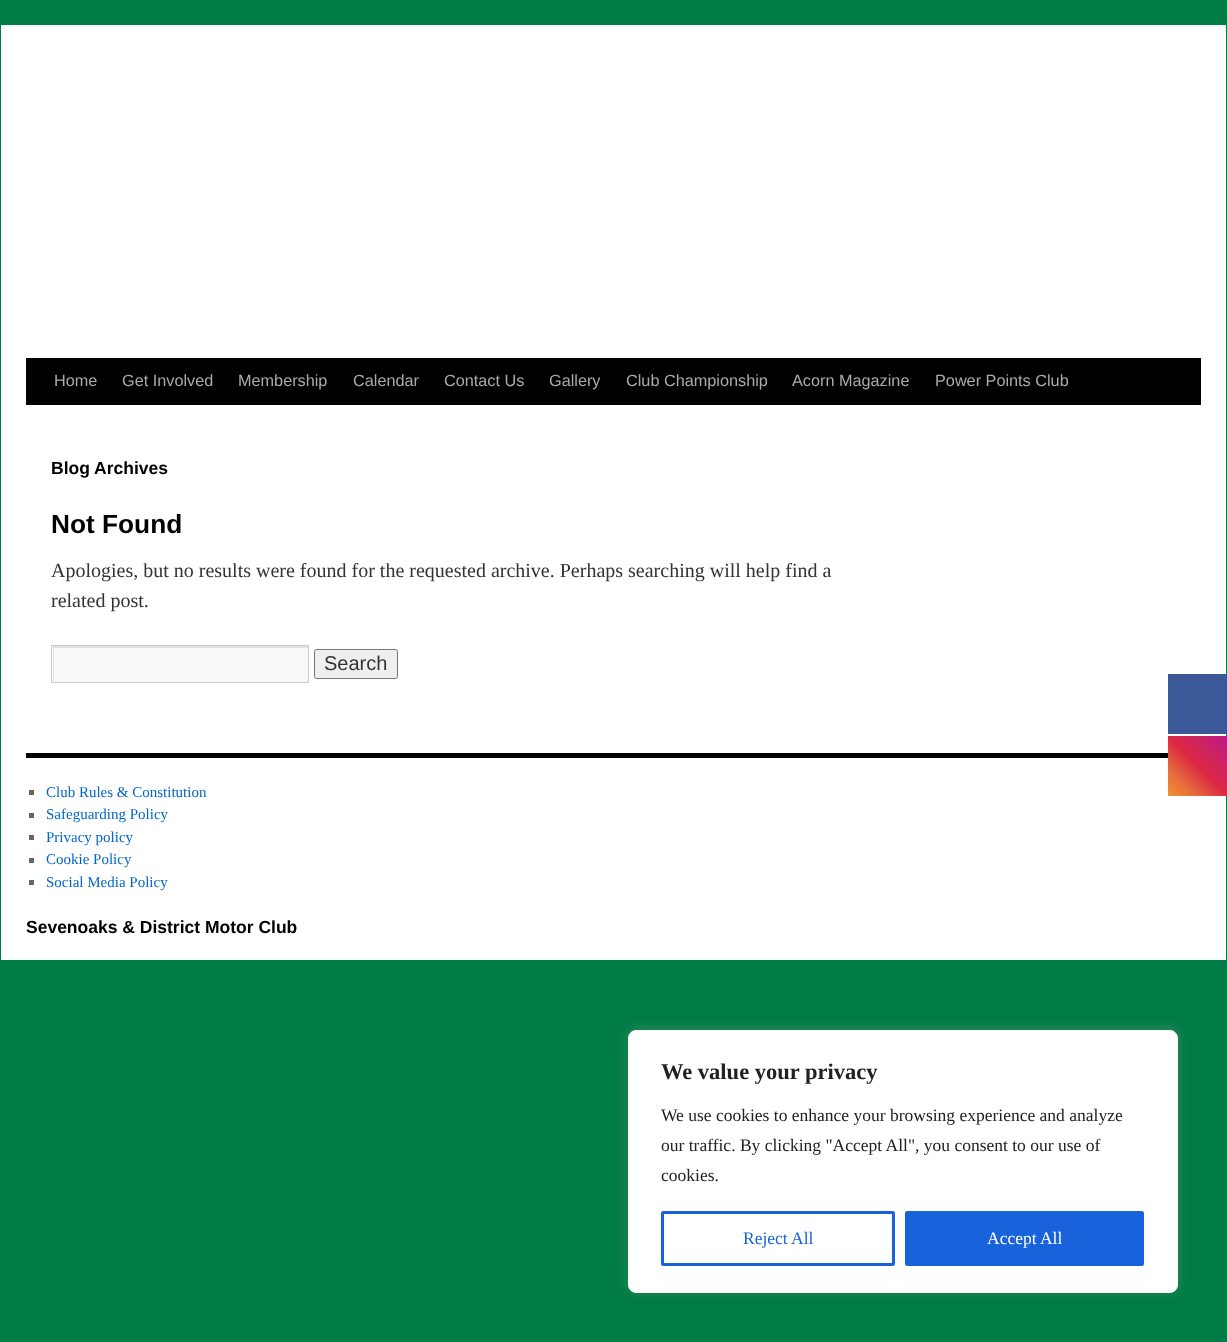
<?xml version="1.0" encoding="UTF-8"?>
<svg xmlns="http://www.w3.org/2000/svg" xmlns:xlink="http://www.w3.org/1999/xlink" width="1227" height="1342">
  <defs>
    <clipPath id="clip1"><rect x="53" y="646" width="255" height="35" /></clipPath>
    <linearGradient id="g1" gradientUnits="userSpaceOnUse" x1="1168" y1="796" x2="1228" y2="736"><stop offset="0" stop-color="#f09433" /><stop offset="0.25" stop-color="#e6683c" /><stop offset="0.5" stop-color="#dc2743" /><stop offset="0.75" stop-color="#cc2366" /><stop offset="1" stop-color="#bc1888" /></linearGradient>
  </defs>
  <rect width="100%" height="100%" fill="#007c46" />
  <rect x="1" y="25" width="1225" height="935" fill="#ffffff" />
  <rect x="26" y="358" width="1175" height="47" fill="#000000" />
  <rect x="52" y="646" width="256" height="36" fill="#f9f9f9" />
  <g clip-path="url(#clip1)">
    <path d="M -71 522 h 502 v 283 h -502 z m 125 126 h 255 v 34 h -255 z" fill="#e0e0e0" fill-rule="evenodd" />
  </g>
  <rect x="51.5" y="645.5" width="257" height="37" fill="none" stroke="#cccccc" />
  <rect x="314.5" y="649.5" width="83" height="29" rx="2" fill="#efefef" stroke="#767676" />
  <rect x="26" y="753" width="1142" height="5" fill="#000000" />
  <rect x="29" y="790" width="5" height="5" fill="#666666" />
  <rect x="29" y="813" width="5" height="5" fill="#666666" />
  <rect x="29" y="835" width="5" height="5" fill="#666666" />
  <rect x="29" y="858" width="5" height="5" fill="#666666" />
  <rect x="29" y="880" width="5" height="5" fill="#666666" />
  <rect x="1168" y="674" width="59" height="60" fill="#3b5998" />
  <rect x="1168" y="736" width="59" height="60" fill="url(#g1)" />
  <rect x="628" y="1029" width="550" height="262" rx="8" fill="#acabab" fill-opacity="0.3" filter="blur(6px)" />
  <rect x="628.5" y="1030.5" width="549" height="262" rx="7.5" fill="#ffffff" stroke="#f4f4f4" />
  <rect x="662.5" y="1212.5" width="231" height="52" rx="1" fill="none" stroke="#1863dc" stroke-width="3" />
  <rect x="906.5" y="1212.5" width="236" height="52" rx="1" fill="#1863dc" stroke="#1863dc" stroke-width="3" />
  <text x="54" y="386" style="font-family: Liberation Sans; font-size: 16.25px; fill: #aaaaaa">Home</text>
  <text x="122" y="386" style="font-family: Liberation Sans; font-size: 16.25px; fill: #aaaaaa">Get Involved</text>
  <text x="238" y="386" style="font-family: Liberation Sans; font-size: 16.25px; fill: #aaaaaa">Membership</text>
  <text x="353" y="386" style="font-family: Liberation Sans; font-size: 16.25px; fill: #aaaaaa">Calendar</text>
  <text x="444" y="386" style="font-family: Liberation Sans; font-size: 16.25px; fill: #aaaaaa">Contact Us</text>
  <text x="549" y="386" style="font-family: Liberation Sans; font-size: 16.25px; fill: #aaaaaa">Gallery</text>
  <text x="626" y="386" style="font-family: Liberation Sans; font-size: 16.25px; fill: #aaaaaa">Club Championship</text>
  <text x="792" y="386" style="font-family: Liberation Sans; font-size: 16.25px; fill: #aaaaaa">Acorn Magazine</text>
  <text x="935" y="386" style="font-family: Liberation Sans; font-size: 16.25px; fill: #aaaaaa">Power Points Club</text>
  <text x="51" y="474" style="font-family: Liberation Sans; font-size: 17.5px; font-weight: bold; fill: #000000">Blog Archives</text>
  <text x="51" y="533" style="font-family: Liberation Sans; font-size: 26.25px; font-weight: bold; fill: #000000">Not Found</text>
  <text x="51" y="577" style="font-family: Liberation Serif; font-size: 20px; fill: #333333">Apologies, but no results were found for the requested archive. Perhaps searching will help find a</text>
  <text x="51" y="607" style="font-family: Liberation Serif; font-size: 20px; fill: #333333">related post.</text>
  <text x="324" y="670" style="font-family: Liberation Sans; font-size: 20px; fill: #333333">Search</text>
  <text x="46" y="797" style="font-family: Liberation Serif; font-size: 15px; fill: #0066cc">Club Rules &amp; Constitution</text>
  <text x="46" y="819" style="font-family: Liberation Serif; font-size: 15px; fill: #0066cc">Safeguarding Policy</text>
  <text x="46" y="842" style="font-family: Liberation Serif; font-size: 15px; fill: #0066cc">Privacy policy</text>
  <text x="46" y="864" style="font-family: Liberation Serif; font-size: 15px; fill: #0066cc">Cookie Policy</text>
  <text x="46" y="887" style="font-family: Liberation Serif; font-size: 15px; fill: #0066cc">Social Media Policy</text>
  <text x="26" y="933" style="font-family: Liberation Sans; font-size: 17.5px; font-weight: bold; fill: #000000">Sevenoaks &amp; District Motor Club</text>
  <text x="661" y="1079" style="font-family: Liberation Serif; font-size: 22.5px; font-weight: bold; fill: #212121">We value your privacy</text>
  <text x="661" y="1121" style="font-family: Liberation Serif; font-size: 17.5px; fill: #212121">We use cookies to enhance your browsing experience and analyze</text>
  <text x="661" y="1151" style="font-family: Liberation Serif; font-size: 17.5px; fill: #212121">our traffic. By clicking "Accept All", you consent to our use of</text>
  <text x="661" y="1181" style="font-family: Liberation Serif; font-size: 17.5px; fill: #212121">cookies.</text>
  <text x="743" y="1244" style="font-family: Liberation Serif; font-size: 17.5px; fill: #1863dc">Reject All</text>
  <text x="987" y="1244" style="font-family: Liberation Serif; font-size: 17.5px; fill: #ffffff">Accept All</text>
</svg>
